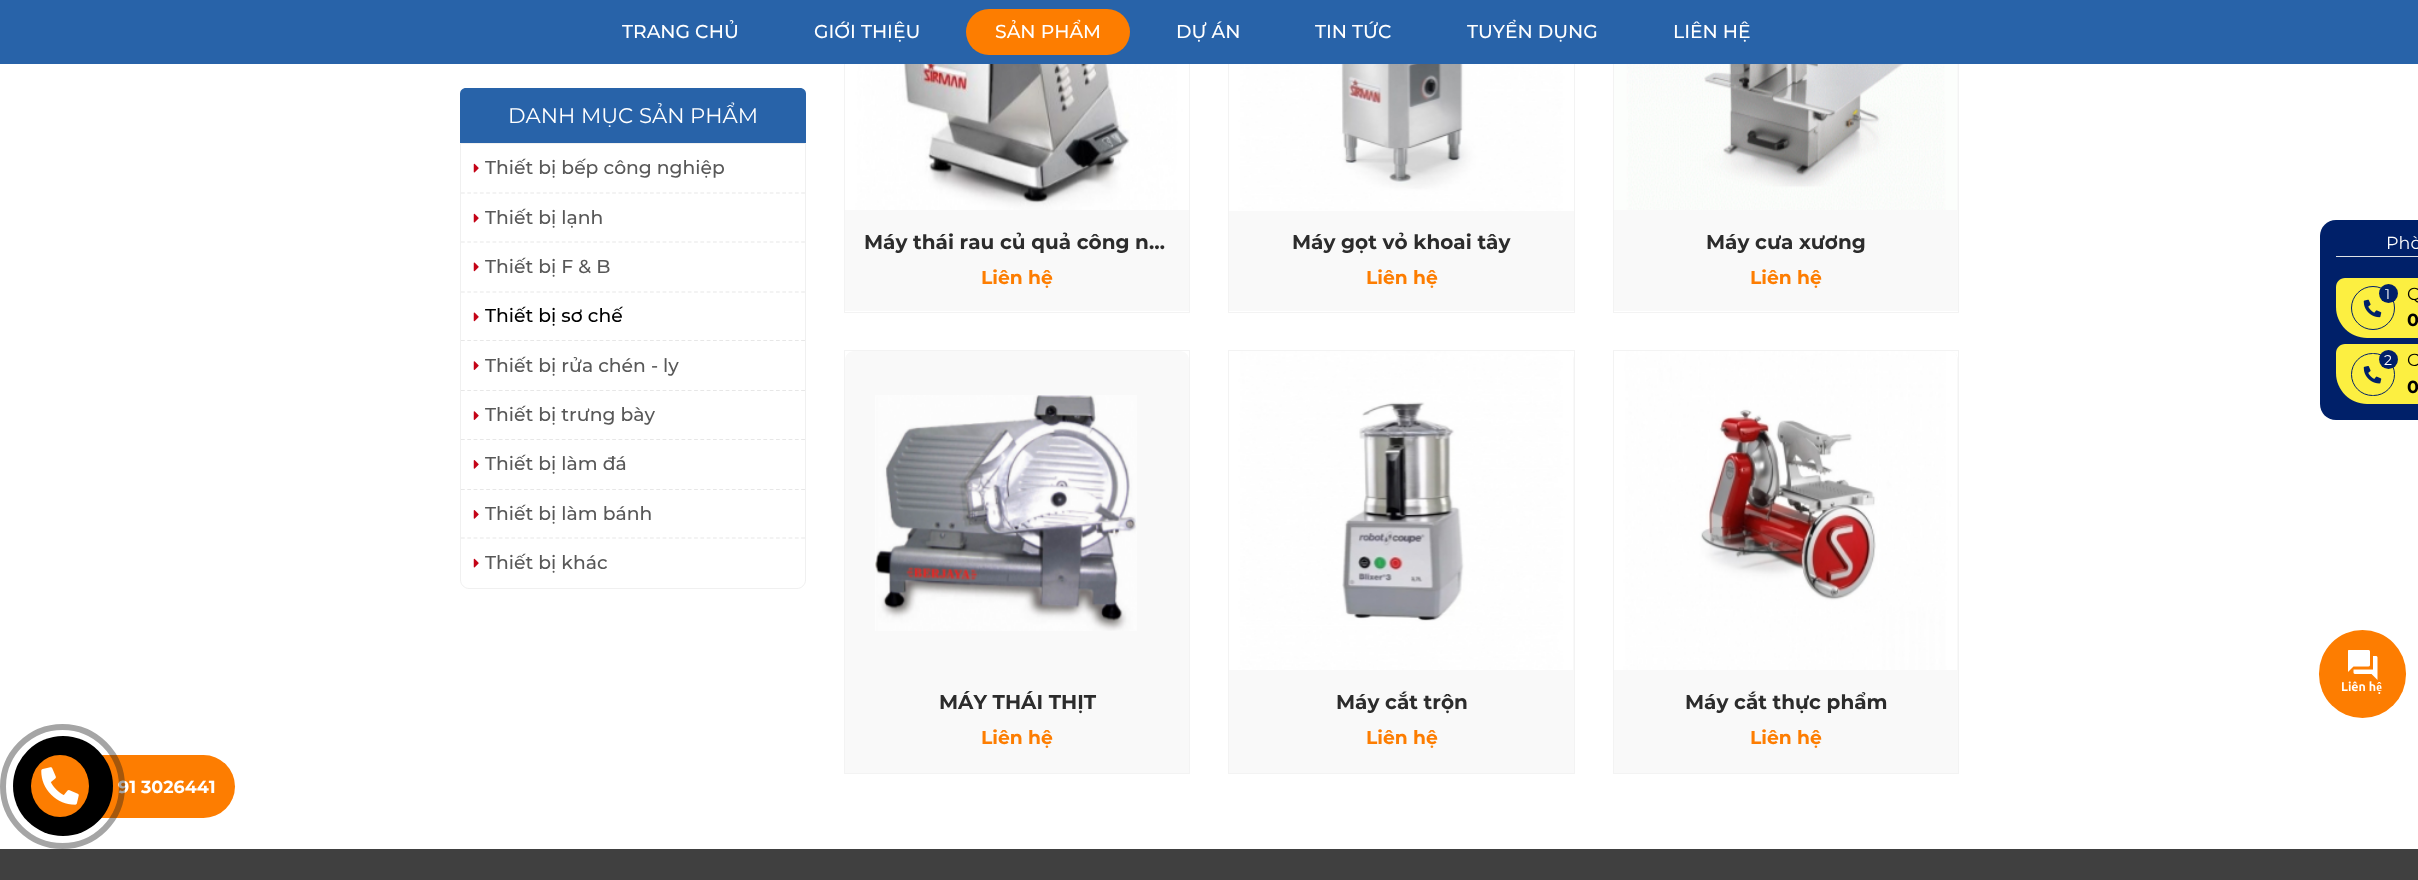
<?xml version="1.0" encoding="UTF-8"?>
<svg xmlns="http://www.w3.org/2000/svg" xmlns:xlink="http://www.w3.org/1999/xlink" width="2418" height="880">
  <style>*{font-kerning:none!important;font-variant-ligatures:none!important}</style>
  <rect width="100%" height="100%" fill="#ffffff" />
  <rect x="844.5" y="-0.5" width="345" height="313" fill="none" stroke="#f3f3f3" />
  <rect x="1228.5" y="-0.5" width="346" height="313" fill="none" stroke="#f3f3f3" />
  <rect x="1613.5" y="-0.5" width="345" height="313" fill="none" stroke="#f3f3f3" />
  <rect width="2418" height="64" fill="#2863a9" />
  <rect x="966" y="9" width="164" height="46" rx="23" fill="#fd7d00" />
  <path d="M 466 88 h 334 c 3.5 0 6 2.5 6 6 v 49 h -346 v -49 c 0 -3.5 2.5 -6 6 -6 z" fill="#2863a9" />
  <path d="M 460.5 143.5 h 345 v 436.5 c 0 4.5 -4 8.5 -8.5 8.5 h -328 c -4.5 0 -8.5 -4 -8.5 -8.5 z" fill="none" stroke="#f0f0f0" />
  <path d="M 461 193 h 344" fill="none" stroke="#e7e7e7" stroke-width="1.2" stroke-dasharray="3.75 2.55" />
  <image x="473" y="163" width="6" height="10" xlink:href="image1.png" />
  <path d="M 461 242 h 344" fill="none" stroke="#e7e7e7" stroke-width="1.2" stroke-dasharray="3.75 2.55" />
  <image x="473" y="213" width="6" height="10" xlink:href="image1.png" />
  <path d="M 461 292 h 344" fill="none" stroke="#e7e7e7" stroke-width="1.2" stroke-dasharray="3.75 2.55" />
  <image x="473" y="262" width="6" height="10" xlink:href="image2.png" />
  <path d="M 461 340.5 h 344" fill="none" stroke="#e7e7e7" stroke-width="1.2" stroke-dasharray="3.75 2.55" />
  <image x="473" y="312" width="6" height="10" xlink:href="image2.png" />
  <path d="M 461 390.5 h 344" fill="none" stroke="#e7e7e7" stroke-width="1.2" stroke-dasharray="3.75 2.55" />
  <image x="473" y="361" width="6" height="9" xlink:href="image3.png" />
  <path d="M 461 439.5 h 344" fill="none" stroke="#e7e7e7" stroke-width="1.2" stroke-dasharray="3.75 2.55" />
  <image x="473" y="411" width="6" height="9" xlink:href="image3.png" />
  <path d="M 461 489.5 h 344" fill="none" stroke="#e7e7e7" stroke-width="1.2" stroke-dasharray="3.75 2.55" />
  <image x="473" y="460" width="6" height="9" xlink:href="image4.png" />
  <path d="M 461 538 h 344" fill="none" stroke="#e7e7e7" stroke-width="1.2" stroke-dasharray="3.75 2.55" />
  <image x="473" y="510" width="6" height="9" xlink:href="image4.png" />
  <image x="473" y="558" width="6" height="10" xlink:href="image1.png" />
  <image x="845" y="64" width="344" height="146" xlink:href="image5.png" />
  <rect x="845" y="210" width="344" height="101" fill="#f9f9f9" />
  <image x="1229" y="64" width="345" height="147" xlink:href="image6.png" />
  <rect x="1229" y="211" width="345" height="100" fill="#f9f9f9" />
  <rect x="1614" y="64" width="344" height="247" fill="#f9f9f9" />
  <image x="1614" y="64" width="343" height="146" xlink:href="image7.png" />
  <rect x="844.5" y="350.5" width="345" height="423" fill="none" stroke="#f3f3f3" />
  <path d="M 854 351 h 326 c 5 0 9 4 9 9 v 311 h -344 v -311 c 0 -5 4 -9 9 -9 z" fill="#f9f9f9" />
  <image x="875" y="395" width="262" height="236" xlink:href="image8.png" />
  <rect x="845" y="671" width="344" height="102" fill="#f9f9f9" />
  <rect x="1228.5" y="350.5" width="346" height="423" fill="none" stroke="#f3f3f3" />
  <path d="M 1238 351 h 327 c 5 0 9 4 9 9 v 311 h -345 v -311 c 0 -5 4 -9 9 -9 z" fill="#f9f9f9" />
  <image x="1229" y="351" width="344" height="319" xlink:href="image9.png" />
  <rect x="1229" y="671" width="345" height="102" fill="#f9f9f9" />
  <rect x="1613.5" y="350.5" width="345" height="423" fill="none" stroke="#f3f3f3" />
  <path d="M 1623 351 h 326 c 5 0 9 4 9 9 v 311 h -344 v -311 c 0 -5 4 -9 9 -9 z" fill="#f9f9f9" />
  <image x="1614" y="351" width="343" height="319" xlink:href="image10.png" />
  <rect x="1614" y="671" width="344" height="102" fill="#f9f9f9" />
  <path d="M 2336 220 h 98 v 200 h -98 c -9 0 -16 -7 -16 -16 v -168 c 0 -9 7 -16 16 -16 z" fill="#002069" />
  <rect x="2336" y="256" width="82" height="1" fill="#dee2e6" />
  <path d="M 2345 278 h 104 v 60 h -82 c -17 0 -31 -14 -31 -31 v -20 c 0 -5 4 -9 9 -9 z" fill="#fcef41" />
  <circle cx="2373" cy="308" r="21.5" fill="none" stroke="#002069" />
  <image x="2363" y="299" width="19" height="19" xlink:href="image11.png" />
  <circle cx="2388.5" cy="293.5" r="9.5" fill="#002069" />
  <path d="M 2345 344 h 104 v 60 h -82 c -17 0 -31 -14 -31 -31 v -20 c 0 -5 4 -9 9 -9 z" fill="#fcef41" />
  <rect x="2351.5" y="353.5" width="43" height="42" rx="21" fill="none" stroke="#002069" />
  <image x="2363" y="366" width="19" height="18" xlink:href="image12.png" />
  <circle cx="2388.5" cy="359.5" r="9.5" fill="#002069" />
  <rect y="849" width="2418" height="31" fill="#404040" />
  <rect x="2319" y="630" width="87" height="88" rx="43.5" fill="#fd7d01" />
  <image x="2348" y="650" width="30" height="30" xlink:href="image13.png" />
  <rect x="31" y="755" width="204" height="63" rx="31.5" fill="#fd7d01" />
  <text x="622" y="38" style="font-family: Montserrat; font-size: 18.75px; font-weight: 500; fill: #ffffff">TRANG CHỦ</text>
  <text x="814" y="38" style="font-family: Montserrat; font-size: 18.75px; font-weight: 500; fill: #ffffff">GIỚI THIỆU</text>
  <text x="995" y="38" style="font-family: Montserrat; font-size: 18.75px; font-weight: 500; fill: #ffffff">SẢN PHẨM</text>
  <text x="1176" y="38" style="font-family: Montserrat; font-size: 18.75px; font-weight: 500; fill: #ffffff">DỰ ÁN</text>
  <text x="1315" y="38" style="font-family: Montserrat; font-size: 18.75px; font-weight: 500; fill: #ffffff">TIN TỨC</text>
  <text x="1467" y="38" style="font-family: Montserrat; font-size: 18.75px; font-weight: 500; fill: #ffffff">TUYỂN DỤNG</text>
  <text x="1673" y="38" style="font-family: Montserrat; font-size: 18.75px; font-weight: 500; fill: #ffffff">LIÊN HỆ</text>
  <text x="508" y="123" style="font-family: Montserrat; font-size: 21.25px; fill: #ffffff">DANH MỤC SẢN PHẨM</text>
  <text x="485" y="174" style="font-family: Montserrat; font-size: 18.75px; font-weight: 500; fill: #585858">Thiết bị bếp công nghiệp</text>
  <text x="485" y="224" style="font-family: Montserrat; font-size: 18.75px; font-weight: 500; fill: #585858">Thiết bị lạnh</text>
  <text x="485" y="273" style="font-family: Montserrat; font-size: 18.75px; font-weight: 500; fill: #585858">Thiết bị F &amp; B</text>
  <text x="485" y="322" style="font-family: Montserrat; font-size: 18.75px; font-weight: 500; fill: #000000">Thiết bị sơ chế</text>
  <text x="485" y="372" style="font-family: Montserrat; font-size: 18.75px; font-weight: 500; fill: #585858">Thiết bị rửa chén - ly</text>
  <text x="485" y="421" style="font-family: Montserrat; font-size: 18.75px; font-weight: 500; fill: #585858">Thiết bị trưng bày</text>
  <text x="485" y="470" style="font-family: Montserrat; font-size: 18.75px; font-weight: 500; fill: #585858">Thiết bị làm đá</text>
  <text x="485" y="520" style="font-family: Montserrat; font-size: 18.75px; font-weight: 500; fill: #585858">Thiết bị làm bánh</text>
  <text x="485" y="569" style="font-family: Montserrat; font-size: 18.75px; font-weight: 500; fill: #585858">Thiết bị khác</text>
  <text x="864" y="249" style="font-family: Montserrat; font-size: 20px; font-weight: bold; fill: #2c2c2c">Máy thái rau củ quả công n…</text>
  <text x="981" y="284" style="font-family: Montserrat; font-size: 18.75px; font-weight: bold; fill: #fd7d01">Liên hệ</text>
  <text x="1292" y="249" style="font-family: Montserrat; font-size: 20px; font-weight: bold; fill: #2c2c2c">Máy gọt vỏ khoai tây</text>
  <text x="1366" y="284" style="font-family: Montserrat; font-size: 18.75px; font-weight: bold; fill: #fd7d01">Liên hệ</text>
  <text x="1706" y="249" style="font-family: Montserrat; font-size: 20px; font-weight: bold; fill: #2c2c2c">Máy cưa xương</text>
  <text x="1750" y="284" style="font-family: Montserrat; font-size: 18.75px; font-weight: bold; fill: #fd7d01">Liên hệ</text>
  <text x="939" y="709" style="font-family: Montserrat; font-size: 20px; font-weight: bold; fill: #2c2c2c">MÁY THÁI THỊT</text>
  <text x="981" y="744" style="font-family: Montserrat; font-size: 18.75px; font-weight: bold; fill: #fd7d01">Liên hệ</text>
  <text x="1336" y="709" style="font-family: Montserrat; font-size: 20px; font-weight: bold; fill: #2c2c2c">Máy cắt trộn</text>
  <text x="1366" y="744" style="font-family: Montserrat; font-size: 18.75px; font-weight: bold; fill: #fd7d01">Liên hệ</text>
  <text x="1685" y="709" style="font-family: Montserrat; font-size: 20px; font-weight: bold; fill: #2c2c2c">Máy cắt thực phẩm</text>
  <text x="1750" y="744" style="font-family: Montserrat; font-size: 18.75px; font-weight: bold; fill: #fd7d01">Liên hệ</text>
  <text x="2386" y="249" style="font-family: Montserrat; font-size: 17.5px; fill: #ffffff">Phò</text>
  <text x="2407" y="300" style="font-family: Montserrat; font-size: 17.5px; fill: #000000">Q</text>
  <text x="2407" y="326" style="font-family: Montserrat; font-size: 17.5px; font-weight: bold; fill: #000000">0</text>
  <text x="2385" y="299" style="font-family: Montserrat; font-size: 14px; fill: #ffffff">1</text>
  <text x="2407" y="366" style="font-family: Montserrat; font-size: 17.5px; fill: #000000">C</text>
  <text x="2407" y="393" style="font-family: Montserrat; font-size: 17.5px; font-weight: bold; fill: #000000">0</text>
  <text x="2384" y="365" style="font-family: Montserrat; font-size: 14px; fill: #ffffff">2</text>
  <text x="2341" y="691" style="font-family: Ubuntu; font-size: 12.5px; font-weight: bold; fill: #ffffff">Liên hệ</text>
  <text x="118" y="793" style="font-family: Montserrat; font-size: 17.5px; font-weight: bold; fill: #ffffff">91 3026441</text>
  <circle cx="62.5" cy="786.5" r="59.5" fill="none" stroke="#1e1e1e" stroke-opacity="0.4" stroke-width="6" />
  <circle cx="63" cy="786" r="50" fill="#000000" />
  <ellipse cx="60" cy="786" rx="29" ry="31" fill="#fd7d01" />
  <image x="41" y="767" width="38" height="38" xlink:href="image14.png" />
</svg>
